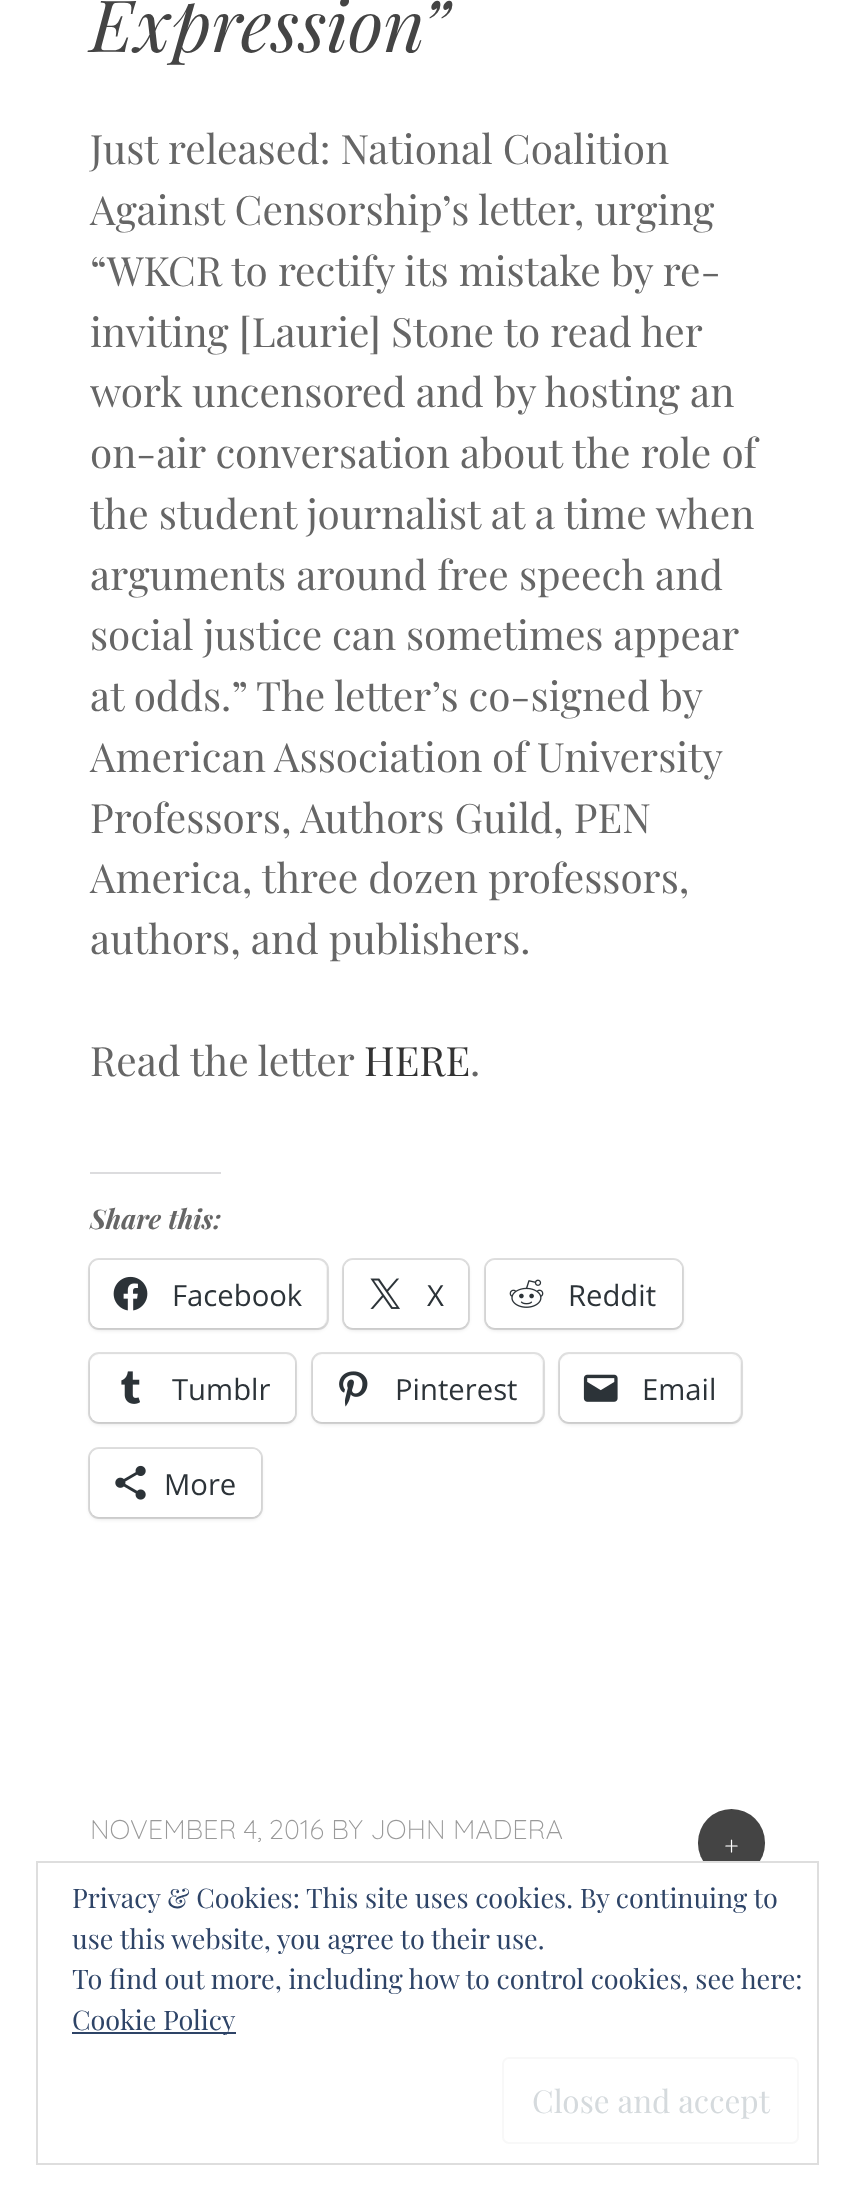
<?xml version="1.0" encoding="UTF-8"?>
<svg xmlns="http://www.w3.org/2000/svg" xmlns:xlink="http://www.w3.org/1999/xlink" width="853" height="2200">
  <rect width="100%" height="100%" fill="#ffffff" />
  <rect x="90" y="1172" width="131" height="2" fill="#dcdcde" />
  <rect x="89" y="1259" width="239" height="70" rx="10" fill="none" stroke="#e0e0e0" stroke-width="2" />
  <rect x="90" y="1262" width="236" height="68" rx="9" fill="#000000" fill-opacity="0.12" filter="blur(2px)" />
  <rect x="90" y="1260" width="236" height="68" rx="9" fill="#ffffff" />
  <image x="113" y="1276" width="35" height="35" xlink:href="image1.png" />
  <rect x="343" y="1259" width="126" height="70" rx="10" fill="none" stroke="#e0e0e0" stroke-width="2" />
  <rect x="344" y="1262" width="124" height="68" rx="9" fill="#000000" fill-opacity="0.12" filter="blur(2px)" />
  <rect x="344" y="1260" width="124" height="68" rx="9" fill="#ffffff" />
  <image x="370" y="1278" width="30" height="31" xlink:href="image2.png" />
  <rect x="485" y="1259" width="198" height="70" rx="10" fill="none" stroke="#e0e0e0" stroke-width="2" />
  <rect x="486" y="1262" width="196" height="68" rx="9" fill="#000000" fill-opacity="0.12" filter="blur(2px)" />
  <rect x="486" y="1260" width="196" height="68" rx="9" fill="#ffffff" />
  <image x="509" y="1279" width="35" height="29" xlink:href="image3.png" />
  <rect x="89" y="1353" width="207" height="70" rx="10" fill="none" stroke="#e0e0e0" stroke-width="2" />
  <rect x="90" y="1357" width="205" height="67" rx="9" fill="#000000" fill-opacity="0.12" filter="blur(2px)" />
  <rect x="90" y="1355" width="205" height="67" rx="9" fill="#ffffff" />
  <image x="121" y="1371" width="19" height="33" xlink:href="image4.png" />
  <rect x="312" y="1353" width="232" height="70" rx="10" fill="none" stroke="#e0e0e0" stroke-width="2" />
  <rect x="313" y="1357" width="229" height="67" rx="9" fill="#000000" fill-opacity="0.12" filter="blur(2px)" />
  <rect x="313" y="1355" width="229" height="67" rx="9" fill="#ffffff" />
  <image x="339" y="1371" width="29" height="36" xlink:href="image5.png" />
  <rect x="559" y="1353" width="183" height="70" rx="10" fill="none" stroke="#e0e0e0" stroke-width="2" />
  <rect x="560" y="1357" width="180" height="67" rx="9" fill="#000000" fill-opacity="0.12" filter="blur(2px)" />
  <rect x="560" y="1355" width="180" height="67" rx="9" fill="#ffffff" />
  <image x="583" y="1374" width="35" height="28" xlink:href="image6.png" />
  <rect x="89" y="1448" width="173" height="70" rx="10" fill="none" stroke="#e0e0e0" stroke-width="2" />
  <rect x="90" y="1451" width="171" height="68" rx="9" fill="#000000" fill-opacity="0.12" filter="blur(2px)" />
  <rect x="90" y="1449" width="171" height="68" rx="9" fill="#ffffff" />
  <image x="115" y="1465" width="31" height="35" xlink:href="image7.png" />
  <rect x="698" y="1809" width="67" height="68" rx="33.5" fill="#444444" />
  <rect x="704" y="1863" width="55" height="14" fill="#ffffff" />
  <rect x="37" y="1862" width="781" height="302" fill="none" stroke="#dedede" stroke-width="2" />
  <rect x="72" y="2032" width="164" height="2" fill="#2e4467" />
  <rect x="503" y="2058" width="295" height="85" rx="6" fill="none" stroke="#f8f8f8" stroke-width="2" />
  <text x="90" y="52" style="font-family: Playfair Display; font-size: 72px; font-style: italic; fill: #444444">Expression”</text>
  <text x="90" y="164" style="font-family: Playfair Display; font-size: 40.5px; fill: #666666">Just released: National Coalition</text>
  <text x="90" y="225" style="font-family: Playfair Display; font-size: 40.5px; fill: #666666">Against Censorship’s letter, urging</text>
  <text x="90" y="286" style="font-family: Playfair Display; font-size: 40.5px; fill: #666666">“WKCR to rectify its mistake by re-</text>
  <text x="90" y="347" style="font-family: Playfair Display; font-size: 40.5px; fill: #666666">inviting [Laurie] Stone to read her</text>
  <text x="90" y="407" style="font-family: Playfair Display; font-size: 40.5px; fill: #666666">work uncensored and by hosting an</text>
  <text x="90" y="468" style="font-family: Playfair Display; font-size: 40.5px; fill: #666666">on-air conversation about the role of</text>
  <text x="90" y="529" style="font-family: Playfair Display; font-size: 40.5px; fill: #666666">the student journalist at a time when</text>
  <text x="90" y="590" style="font-family: Playfair Display; font-size: 40.5px; fill: #666666">arguments around free speech and</text>
  <text x="90" y="650" word-spacing="-0.25" style="font-family: Playfair Display; font-size: 40.5px; fill: #666666">social justice can sometimes appear</text>
  <text x="90" y="711" word-spacing="-0.25" style="font-family: Playfair Display; font-size: 40.5px; fill: #666666">at odds.” The letter’s co-signed by</text>
  <text x="90" y="772" word-spacing="-0.5" style="font-family: Playfair Display; font-size: 40.5px; fill: #666666">American Association of University</text>
  <text x="90" y="833" style="font-family: Playfair Display; font-size: 40.5px; fill: #666666">Professors, Authors Guild, PEN</text>
  <text x="90" y="893" style="font-family: Playfair Display; font-size: 40.5px; fill: #666666">America, three dozen professors,</text>
  <text x="90" y="954" style="font-family: Playfair Display; font-size: 40.5px; fill: #666666">authors, and publishers.</text>
  <text x="90" y="1076" style="font-family: Playfair Display; font-size: 40.5px; fill: #666666">Read the letter</text>
  <text x="364" y="1076" style="font-family: Playfair Display; font-size: 40.5px; fill: #333333">HERE</text>
  <text x="470" y="1076" style="font-family: Playfair Display; font-size: 40.5px; fill: #666666">.</text>
  <text x="90" y="1229" style="font-family: Playfair Display; font-size: 27px; font-weight: bold; font-style: italic; fill: #666666">Share this:</text>
  <text x="172" y="1306" style="font-family: Open Sans; font-size: 29.25px; fill: #2c3338">Facebook</text>
  <text x="427" y="1306" style="font-family: Open Sans; font-size: 29.25px; fill: #2c3338">X</text>
  <text x="568" y="1306" style="font-family: Open Sans; font-size: 29.25px; fill: #2c3338">Reddit</text>
  <text x="172" y="1400" style="font-family: Open Sans; font-size: 29.25px; fill: #2c3338">Tumblr</text>
  <text x="395" y="1400" style="font-family: Open Sans; font-size: 29.25px; fill: #2c3338">Pinterest</text>
  <text x="642" y="1400" style="font-family: Open Sans; font-size: 29.25px; fill: #2c3338">Email</text>
  <text x="164" y="1495" style="font-family: Open Sans; font-size: 29.25px; fill: #2c3338">More</text>
  <text x="90" y="1839" style="font-family: Quicksand; font-size: 27px; font-weight: 300; fill: #999999">NOVEMBER 4, 2016 BY JOHN MADERA</text>
  <text x="724" y="1855" style="font-family: Quicksand; font-size: 27px; font-weight: 300; fill: #ffffff">+</text>
  <text x="72" y="1908" style="font-family: Playfair Display; font-size: 27px; fill: #2e4467">Privacy &amp; Cookies: This site uses cookies. By continuing to</text>
  <text x="72" y="1949" style="font-family: Playfair Display; font-size: 27px; fill: #2e4467">use this website, you agree to their use.</text>
  <text x="72" y="1989" style="font-family: Playfair Display; font-size: 27px; fill: #2e4467">To find out more, including how to control cookies, see here:</text>
  <text x="72" y="2030" style="font-family: Playfair Display; font-size: 27px; fill: #2e4467">Cookie Policy</text>
  <text x="532" y="2113" style="font-family: Playfair Display; font-size: 31.5px; fill: #d5dadd">Close and accept</text>
</svg>
